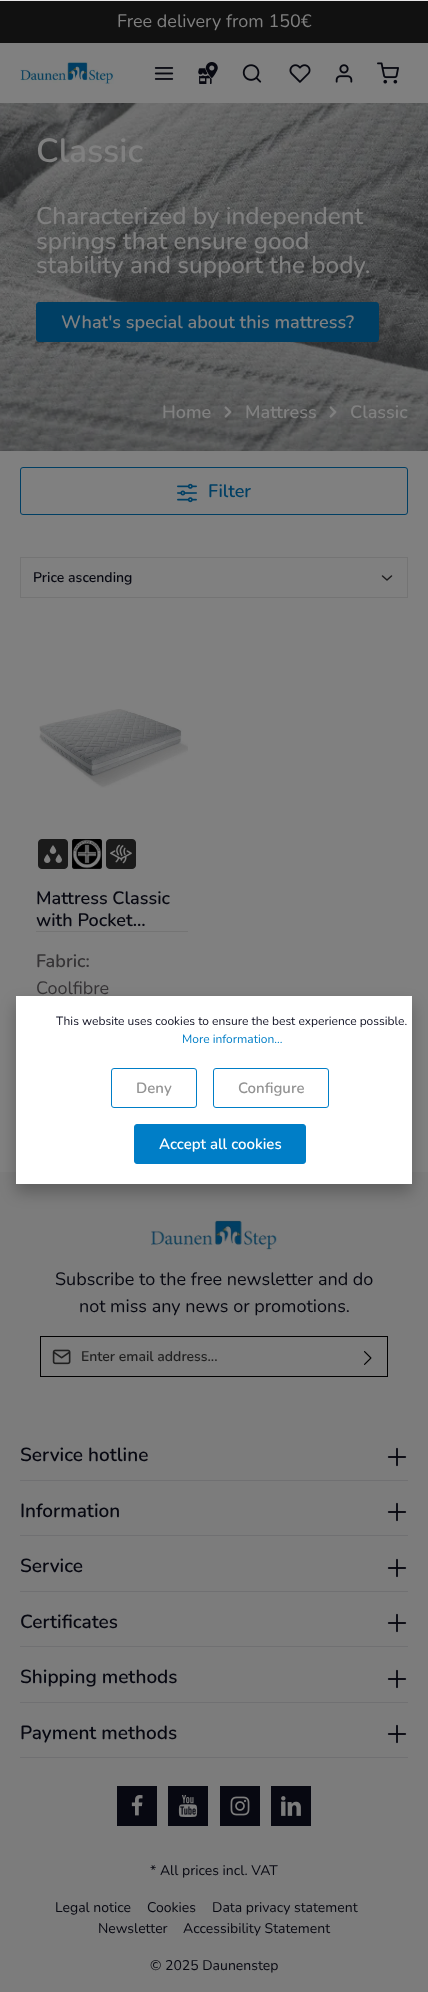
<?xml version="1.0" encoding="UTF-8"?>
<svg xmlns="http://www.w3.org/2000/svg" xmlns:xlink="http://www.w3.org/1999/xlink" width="428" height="1992">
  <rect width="100%" height="100%" fill="#808080" />
  <rect y="1" width="428" height="42" fill="#111111" />
  <image x="20" y="62" width="94" height="22" xlink:href="image1.png" />
  <image x="154" y="67" width="20" height="13" xlink:href="image2.png" />
  <image x="198" y="62" width="20" height="22" xlink:href="image3.png" />
  <image x="242" y="64" width="20" height="19" xlink:href="image4.png" />
  <image x="289" y="64" width="22" height="19" xlink:href="image5.png" />
  <image x="335" y="64" width="18" height="19" xlink:href="image6.png" />
  <image x="377" y="62" width="22" height="22" xlink:href="image7.png" />
  <image x="0" y="103" width="428" height="348" xlink:href="image8.png" />
  <rect x="36.5" y="302.5" width="342" height="39" rx="2.5" fill="#003f64" stroke="#003f64" />
  <image x="224" y="406" width="8" height="12" xlink:href="image9.png" />
  <image x="329" y="406" width="8" height="12" xlink:href="image10.png" />
  <rect x="20.5" y="467.5" width="387" height="47" rx="2.5" fill="none" stroke="#003f64" />
  <image x="177" y="483" width="20" height="20" xlink:href="image11.png" />
  <path d="M 382.5 576 l 4.5 4 l 4.5 -4" fill="none" stroke="#1e1d1e" stroke-width="1.5" stroke-linecap="round" stroke-linejoin="round" />
  <rect x="20.5" y="557.5" width="387" height="40" fill="none" stroke="#747474" />
  <image x="39" y="709" width="149" height="79" xlink:href="image12.png" />
  <image x="38" y="839" width="30" height="30" xlink:href="image13.png" />
  <image x="72" y="839" width="30" height="30" xlink:href="image14.png" />
  <image x="106" y="839" width="30" height="30" xlink:href="image15.png" />
  <rect x="36" y="931" width="152" height="1" fill="#747474" />
  <rect y="1172" width="428" height="820" fill="#7c7c7c" />
  <image x="151" y="1220" width="126" height="30" xlink:href="image16.png" />
  <image x="52" y="1349" width="19" height="16" xlink:href="image17.png" />
  <rect x="40" y="1336" width="348" height="1" fill="#000000" />
  <rect x="40" y="1376" width="309" height="1" fill="#000000" />
  <rect x="40" y="1336" width="1" height="41" fill="#000000" />
  <rect x="387" y="1336" width="1" height="41" fill="#000000" />
  <rect x="349" y="1376" width="39" height="1" fill="#000000" />
  <image x="364" y="1351" width="8" height="14" xlink:href="image18.png" />
  <rect x="20" y="1480" width="388" height="1" fill="#707072" />
  <image x="387" y="1447" width="20" height="20" xlink:href="image19.png" />
  <rect x="20" y="1535" width="388" height="1" fill="#707072" />
  <image x="387" y="1502" width="20" height="20" xlink:href="image19.png" />
  <rect x="20" y="1591" width="388" height="1" fill="#707072" />
  <image x="387" y="1558" width="20" height="20" xlink:href="image19.png" />
  <rect x="20" y="1646" width="388" height="1" fill="#707072" />
  <image x="387" y="1613" width="20" height="20" xlink:href="image19.png" />
  <rect x="20" y="1702" width="388" height="1" fill="#707072" />
  <image x="387" y="1669" width="20" height="20" xlink:href="image19.png" />
  <rect x="20" y="1757" width="388" height="1" fill="#707072" />
  <image x="387" y="1724" width="20" height="20" xlink:href="image19.png" />
  <rect x="117" y="1786" width="40" height="40" fill="#070811" />
  <image x="131" y="1795" width="12" height="21" xlink:href="image20.png" />
  <rect x="168" y="1786" width="40" height="40" fill="#070811" />
  <image x="178" y="1795" width="20" height="22" xlink:href="image21.png" />
  <rect x="220" y="1786" width="40" height="40" fill="#070811" />
  <image x="230" y="1796" width="20" height="20" xlink:href="image22.png" />
  <rect x="271" y="1786" width="40" height="40" fill="#070811" />
  <image x="281" y="1796" width="20" height="20" xlink:href="image23.png" />
  <rect width="428" height="1" fill="#e8e7e8" />
  <rect x="16" y="1004" width="396" height="188" fill="#000000" fill-opacity="0.25" filter="blur(8px)" />
  <rect x="16" y="996" width="396" height="188" fill="#ffffff" />
  <rect x="111.5" y="1068.5" width="85" height="39" rx="2.5" fill="none" stroke="#007ec7" />
  <rect x="213.5" y="1068.5" width="115" height="39" rx="2.5" fill="none" stroke="#007ec7" />
  <rect x="134.5" y="1124.5" width="171" height="39" rx="2.5" fill="#007ec7" stroke="#007ec7" />
  <text x="117" y="27" style="font-family: Nunito; font-size: 18px; fill: #808080">Free delivery from 150€</text>
  <text x="36" y="162" style="font-family: Nunito; font-size: 33.5px; font-weight: 600; fill: #808080">Classic</text>
  <text x="36" y="224" style="font-family: Nunito; font-size: 24.25px; font-weight: 500; fill: #808080">Characterized by independent</text>
  <text x="36" y="249" style="font-family: Nunito; font-size: 24.25px; font-weight: 500; fill: #808080">springs that ensure good</text>
  <text x="36" y="273" style="font-family: Nunito; font-size: 24.25px; font-weight: 500; fill: #808080">stability and support the body.</text>
  <text x="61" y="328" style="font-family: Nunito; font-size: 18px; font-weight: 600; fill: #808080">What's special about this mattress?</text>
  <text x="162" y="418" style="font-family: Nunito; font-size: 18px; font-weight: 600; fill: #808080">Home</text>
  <text x="245" y="418" style="font-family: Nunito; font-size: 18px; font-weight: 600; fill: #808080">Mattress</text>
  <text x="350" y="418" style="font-family: Nunito; font-size: 18px; font-weight: 600; fill: #808080">Classic</text>
  <text x="208" y="497" style="font-family: Nunito; font-size: 18px; font-weight: 600; fill: #003f64">Filter</text>
  <text x="33" y="582" style="font-family: Nunito; font-size: 14px; font-weight: 600; fill: #070811">Price ascending</text>
  <text x="36" y="904" style="font-family: Nunito; font-size: 18px; font-weight: 600; fill: #070811">Mattress Classic</text>
  <text x="36" y="926" style="font-family: Nunito; font-size: 18px; font-weight: 600; fill: #070811">with Pocket…</text>
  <text x="36" y="967" style="font-family: Nunito; font-size: 18px; font-weight: 600; fill: #353335">Fabric:</text>
  <text x="36" y="994" style="font-family: Nunito; font-size: 18px; fill: #353335">Coolfibre</text>
  <text x="55" y="1285" style="font-family: Nunito; font-size: 18px; fill: #070811">Subscribe to the free newsletter and do</text>
  <text x="79" y="1312" style="font-family: Nunito; font-size: 18px; fill: #070811">not miss any news or promotions.</text>
  <text x="81" y="1361" style="font-family: Nunito; font-size: 14px; font-weight: 600; fill: #1f1f1f">Enter email address...</text>
  <text x="20" y="1461" style="font-family: Nunito; font-size: 19px; font-weight: 600; fill: #070811">Service hotline</text>
  <text x="20" y="1517" style="font-family: Nunito; font-size: 19px; font-weight: 600; fill: #070811">Information</text>
  <text x="20" y="1572" style="font-family: Nunito; font-size: 19px; font-weight: 600; fill: #070811">Service</text>
  <text x="20" y="1628" style="font-family: Nunito; font-size: 19px; font-weight: 600; fill: #070811">Certificates</text>
  <text x="20" y="1683" style="font-family: Nunito; font-size: 19px; font-weight: 600; fill: #070811">Shipping methods</text>
  <text x="20" y="1739" style="font-family: Nunito; font-size: 19px; font-weight: 600; fill: #070811">Payment methods</text>
  <text x="150" y="1875" style="font-family: Nunito; font-size: 14px; fill: #070811">* All prices incl. VAT</text>
  <text x="55" y="1912" style="font-family: Nunito; font-size: 14px; fill: #070811">Legal notice</text>
  <text x="147" y="1912" style="font-family: Nunito; font-size: 14px; fill: #070811">Cookies</text>
  <text x="212" y="1912" style="font-family: Nunito; font-size: 14px; fill: #070811">Data privacy statement</text>
  <text x="98" y="1933" style="font-family: Nunito; font-size: 14px; fill: #070811">Newsletter</text>
  <text x="183" y="1933" style="font-family: Nunito; font-size: 14px; fill: #070811">Accessibility Statement</text>
  <text x="150" y="1970" style="font-family: Nunito; font-size: 14px; fill: #070811">© 2025 Daunenstep</text>
  <text x="56" y="1025" style="font-family: Nunito; font-size: 12px; fill: #0e0f21">This website uses cookies to ensure the best experience possible.</text>
  <text x="182" y="1043" style="font-family: Nunito; font-size: 12px; fill: #007ec7">More information...</text>
  <text x="136" y="1093" style="font-family: Nunito; font-size: 15px; font-weight: 600; fill: #939393">Deny</text>
  <text x="238" y="1093" style="font-family: Nunito; font-size: 15px; font-weight: 600; fill: #939393">Configure</text>
  <text x="159" y="1149" style="font-family: Nunito; font-size: 15px; font-weight: 600; fill: #ffffff">Accept all cookies</text>
</svg>
